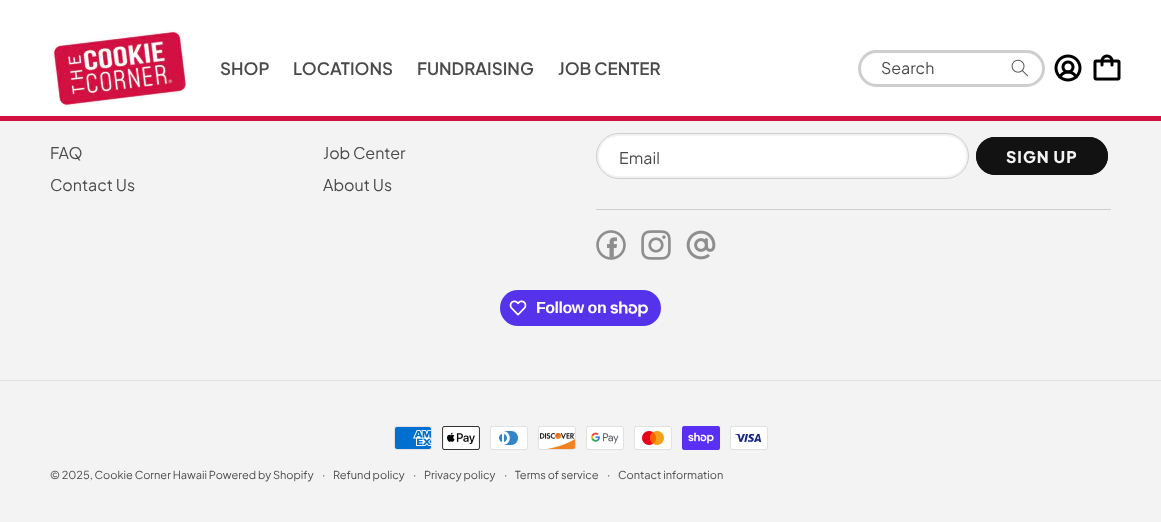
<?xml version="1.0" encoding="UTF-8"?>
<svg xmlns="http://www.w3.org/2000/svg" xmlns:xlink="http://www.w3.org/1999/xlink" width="1161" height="522">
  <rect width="100%" height="100%" fill="#f3f3f3" />
  <rect width="1161" height="116" fill="#ffffff" />
  <rect y="116" width="1161" height="5" fill="#d21142" />
  <image x="51" y="29" width="137" height="79" xlink:href="image1.png" />
  <image x="1011" y="59" width="17" height="18" xlink:href="image2.png" />
  <rect x="859.5" y="51.5" width="184" height="34" rx="17" fill="none" stroke="#cecece" stroke-width="3" />
  <image x="1054" y="54" width="28" height="28" xlink:href="image3.png" />
  <image x="1093" y="54" width="28" height="27" xlink:href="image4.png" />
  <rect x="599" y="136" width="367" height="40" rx="20" fill="#ffffff" />
  <rect x="596.5" y="133.5" width="372" height="45" rx="22.5" fill="none" stroke="#cecece" />
  <rect x="976" y="137" width="132" height="38" rx="19" fill="#121212" />
  <rect x="976.5" y="137.5" width="131" height="37" rx="18.5" fill="none" stroke="#121212" />
  <rect x="596" y="209" width="515" height="1" fill="#cecece" />
  <image x="596" y="230" width="30" height="30" xlink:href="image5.png" />
  <image x="641" y="230" width="30" height="30" xlink:href="image6.png" />
  <image x="686" y="230" width="30" height="30" xlink:href="image7.png" />
  <rect x="500" y="290" width="161" height="36" rx="18" fill="#5433eb" />
  <image x="509" y="300" width="18" height="16" xlink:href="image8.png" />
  <image x="610" y="301" width="38" height="16" xlink:href="image9.png" />
  <rect y="380" width="1161" height="1" fill="#e1e1e1" />
  <image x="394" y="426" width="38" height="24" xlink:href="image10.png" />
  <image x="442" y="426" width="38" height="24" xlink:href="image11.png" />
  <image x="490" y="426" width="38" height="24" xlink:href="image12.png" />
  <image x="538" y="426" width="38" height="24" xlink:href="image13.png" />
  <image x="586" y="426" width="38" height="24" xlink:href="image14.png" />
  <image x="634" y="426" width="38" height="24" xlink:href="image15.png" />
  <image x="682" y="426" width="38" height="24" xlink:href="image16.png" />
  <image x="730" y="426" width="38" height="24" xlink:href="image17.png" />
  <text x="220" y="75" style="font-family: Plus Jakarta Sans; font-size: 17px; font-weight: 600; fill: #4a4a4a">SHOP</text>
  <text x="293" y="75" style="font-family: Plus Jakarta Sans; font-size: 17px; font-weight: 600; fill: #4a4a4a">LOCATIONS</text>
  <text x="417" y="75" style="font-family: Plus Jakarta Sans; font-size: 17px; font-weight: 600; fill: #4a4a4a">FUNDRAISING</text>
  <text x="558" y="75" style="font-family: Plus Jakarta Sans; font-size: 17px; font-weight: 600; fill: #4a4a4a">JOB CENTER</text>
  <text x="881" y="74" style="font-family: Plus Jakarta Sans; font-size: 16px; fill: #4a4a4a">Search</text>
  <text x="50" y="159" style="font-family: Plus Jakarta Sans; font-size: 16px; fill: #4a4a4a">FAQ</text>
  <text x="50" y="191" style="font-family: Plus Jakarta Sans; font-size: 16px; fill: #4a4a4a">Contact Us</text>
  <text x="323" y="159" style="font-family: Plus Jakarta Sans; font-size: 16px; fill: #4a4a4a">Job Center</text>
  <text x="323" y="191" style="font-family: Plus Jakarta Sans; font-size: 16px; fill: #4a4a4a">About Us</text>
  <text x="619" y="164" style="font-family: Plus Jakarta Sans; font-size: 16px; fill: #4a4a4a">Email</text>
  <text x="1006" y="163" style="font-family: Plus Jakarta Sans; font-size: 16px; font-weight: 800; letter-spacing: 1px; fill: #f3f3f3">SIGN UP</text>
  <text x="536" y="313" style="font-family: Liberation Sans; font-size: 16px; font-weight: bold; letter-spacing: -0.5px; fill: #ffffff">Follow on</text>
  <text x="50" y="479" style="font-family: Plus Jakarta Sans; font-size: 11px; fill: #4a4a4a">© 2025, Cookie Corner Hawaii Powered by Shopify</text>
  <text x="322" y="479" style="font-family: Plus Jakarta Sans; font-size: 12px; fill: #4a4a4a">·</text>
  <text x="333" y="479" style="font-family: Plus Jakarta Sans; font-size: 11px; fill: #4a4a4a">Refund policy</text>
  <text x="413" y="479" style="font-family: Plus Jakarta Sans; font-size: 12px; fill: #4a4a4a">·</text>
  <text x="424" y="479" style="font-family: Plus Jakarta Sans; font-size: 11px; fill: #4a4a4a">Privacy policy</text>
  <text x="504" y="479" style="font-family: Plus Jakarta Sans; font-size: 12px; fill: #4a4a4a">·</text>
  <text x="515" y="479" style="font-family: Plus Jakarta Sans; font-size: 11px; fill: #4a4a4a">Terms of service</text>
  <text x="607" y="479" style="font-family: Plus Jakarta Sans; font-size: 12px; fill: #4a4a4a">·</text>
  <text x="618" y="479" style="font-family: Plus Jakarta Sans; font-size: 11px; fill: #4a4a4a">Contact information</text>
</svg>
